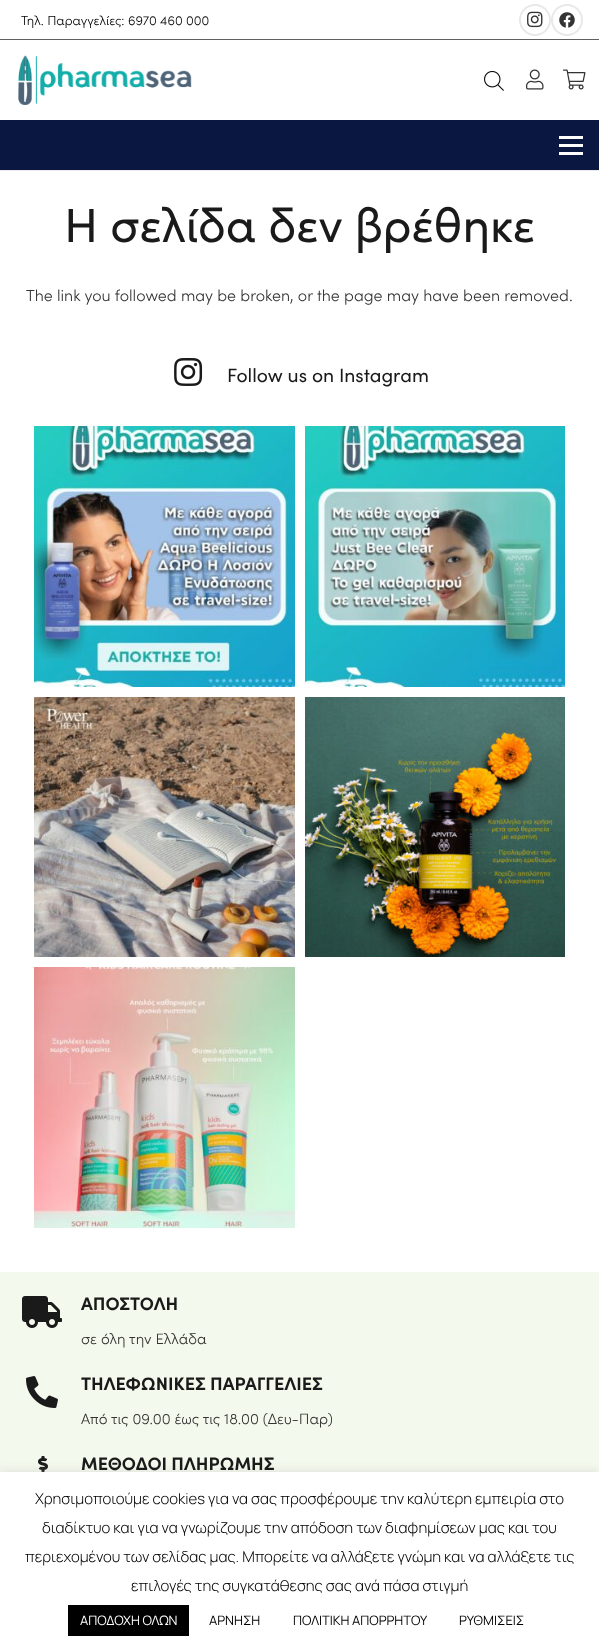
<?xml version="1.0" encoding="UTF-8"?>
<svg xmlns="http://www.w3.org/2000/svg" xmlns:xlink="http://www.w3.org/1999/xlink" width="599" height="1648">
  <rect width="100%" height="100%" fill="#ffffff" />
  <rect y="39" width="599" height="1" fill="#606060" />
  <circle cx="535" cy="20" r="15" fill="none" stroke="#e8e8e8" stroke-width="2" />
  <image x="527" y="11" width="16" height="17" xlink:href="image1.png" />
  <circle cx="567" cy="20" r="15" fill="none" stroke="#e8e8e8" stroke-width="2" />
  <image x="559" y="12" width="16" height="16" xlink:href="image2.png" />
  <image x="18" y="55" width="174" height="50" xlink:href="image3.png" />
  <image x="484" y="71" width="20" height="20" xlink:href="image4.png" />
  <image x="526" y="69" width="18" height="21" xlink:href="image5.png" />
  <image x="563" y="69" width="23" height="21" xlink:href="image6.png" />
  <rect y="170" width="599" height="1" fill="#ebebeb" />
  <rect y="120" width="599" height="50" fill="#0a1841" />
  <rect x="559" y="144" width="24" height="3" fill="#ffffff" />
  <rect x="559" y="136" width="24" height="3" fill="#ffffff" />
  <rect x="559" y="152" width="24" height="3" fill="#ffffff" />
  <image x="174" y="358" width="29" height="28" xlink:href="image7.png" />
  <image x="34" y="426" width="261" height="261" xlink:href="image8.png" />
  <image x="305" y="426" width="260" height="261" xlink:href="image9.png" />
  <image x="34" y="697" width="261" height="260" xlink:href="image10.png" />
  <image x="305" y="697" width="260" height="260" xlink:href="image11.png" />
  <image x="34" y="967" width="261" height="261" xlink:href="image12.png" />
  <rect y="1272" width="599" height="200" fill="#f4f9ed" />
  <image x="22" y="1296" width="40" height="32" xlink:href="image13.png" />
  <image x="26" y="1376" width="32" height="32" xlink:href="image14.png" />
  <image x="38" y="1456" width="10" height="16" xlink:href="image15.png" />
  <rect y="1471" width="599" height="176" fill="#acabab" fill-opacity="0.3" filter="blur(5px)" />
  <rect y="1472" width="599" height="176" fill="#ffffff" />
  <rect x="68" y="1605" width="121" height="31" fill="#000000" />
  <text x="21" y="25" style="font-family: Sofia; font-size: 13px; font-weight: 300; fill: #000000">Τηλ. Παραγγελίες: 6970 460 000</text>
  <text x="64" y="242" style="font-family: Sofia; font-size: 48px; fill: #1a1a1a">Η σελίδα δεν βρέθηκε</text>
  <text x="26" y="301" style="font-family: Sofia; font-size: 16px; font-weight: 300; fill: #333333">The link you followed may be broken, or the page may have been removed.</text>
  <text x="227" y="382" style="font-family: Sofia; font-size: 19.25px; fill: #1a1a1a">Follow us on Instagram</text>
  <text x="81" y="1310" style="font-family: Sofia; font-size: 18px; font-weight: bold; fill: #1a1a1a">ΑΠΟΣΤΟΛΗ</text>
  <text x="81" y="1344" style="font-family: Sofia; font-size: 15px; font-weight: 300; fill: #333333">σε όλη την Ελλάδα</text>
  <text x="81" y="1390" style="font-family: Sofia; font-size: 18px; font-weight: bold; fill: #1a1a1a">ΤΗΛΕΦΩΝΙΚΕΣ ΠΑΡΑΓΓΕΛΙΕΣ</text>
  <text x="81" y="1424" style="font-family: Sofia; font-size: 15px; font-weight: 300; fill: #333333">Από τις 09.00 έως τις 18.00 (Δευ-Παρ)</text>
  <text x="81" y="1470" style="font-family: Sofia; font-size: 18px; font-weight: bold; fill: #1a1a1a">ΜΕΘΟΔΟΙ ΠΛΗΡΩΜΗΣ</text>
  <text x="35" y="1504" style="font-family: Manrope; font-size: 15px; font-weight: 300; fill: #000000">Χρησιμοποιούμε cookies για να σας προσφέρουμε την καλύτερη εμπειρία στο</text>
  <text x="42" y="1533" style="font-family: Manrope; font-size: 15px; font-weight: 300; fill: #000000">διαδίκτυο και για να γνωρίζουμε την απόδοση των διαφημίσεων μας και του</text>
  <text x="25" y="1562" style="font-family: Manrope; font-size: 15px; font-weight: 300; fill: #000000">περιεχομένου των σελίδας μας. Μπορείτε να αλλάξετε γνώμη και να αλλάξετε τις</text>
  <text x="131" y="1591" style="font-family: Manrope; font-size: 15px; font-weight: 300; fill: #000000">επιλογές της συγκατάθεσης σας ανά πάσα στιγμή</text>
  <text x="80" y="1625" style="font-family: Manrope; font-size: 13px; fill: #ffffff">ΑΠΟΔΟΧΗ ΟΛΩΝ</text>
  <text x="209" y="1625" style="font-family: Manrope; font-size: 13px; fill: #000000">ΑΡΝΗΣΗ</text>
  <text x="293" y="1625" style="font-family: Manrope; font-size: 13px; fill: #000000">ΠΟΛΙΤΙΚΗ ΑΠΟΡΡΗΤΟΥ</text>
  <text x="459" y="1625" style="font-family: Manrope; font-size: 13px; fill: #000000">ΡΥΘΜΙΣΕΙΣ</text>
</svg>
